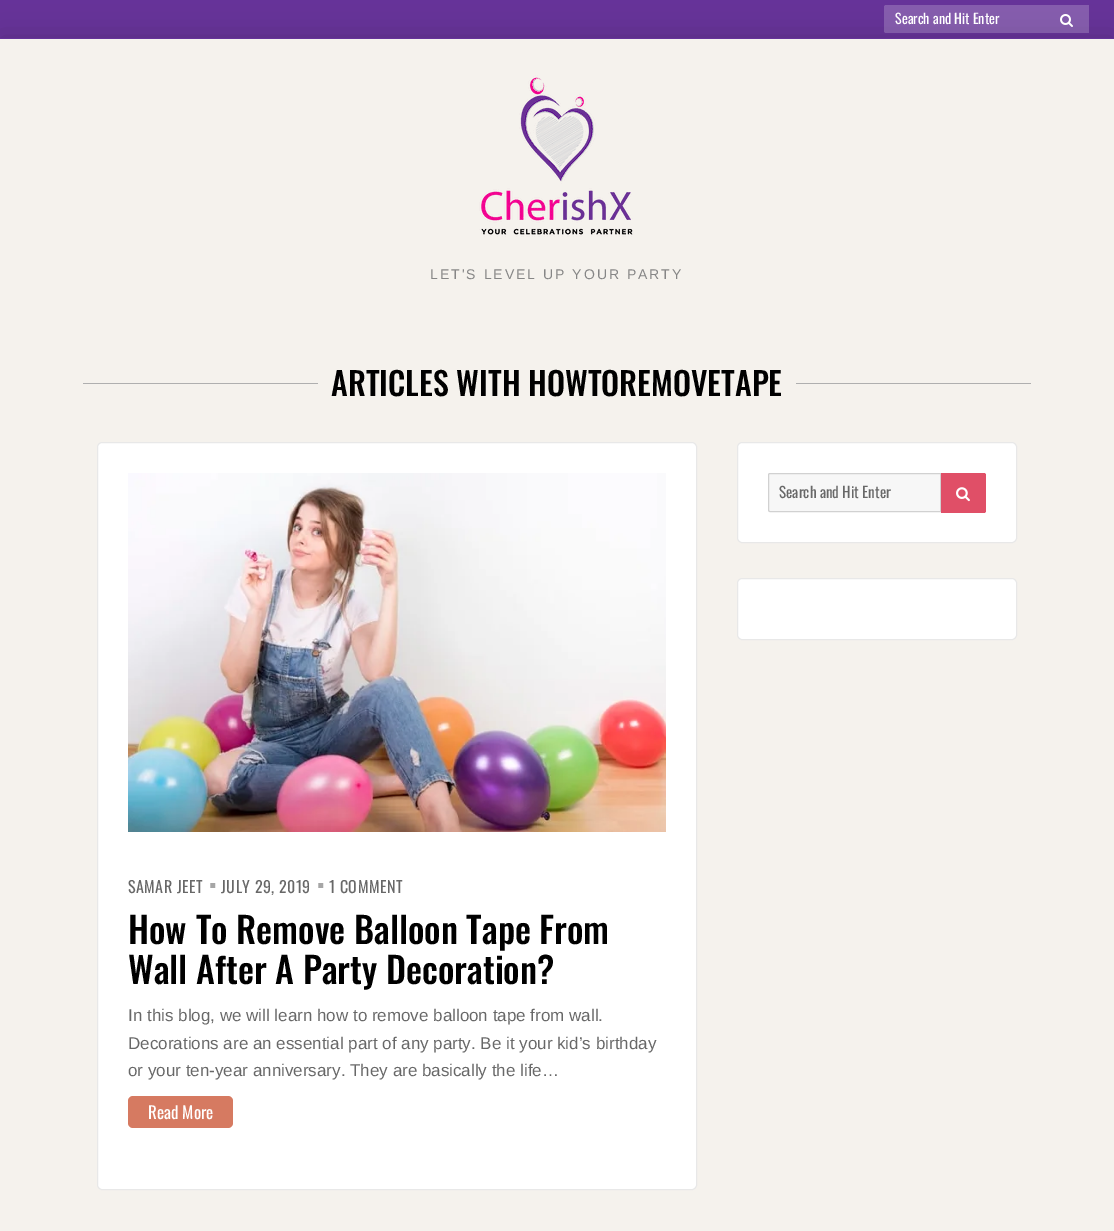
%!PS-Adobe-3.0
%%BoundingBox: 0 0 1114 1231
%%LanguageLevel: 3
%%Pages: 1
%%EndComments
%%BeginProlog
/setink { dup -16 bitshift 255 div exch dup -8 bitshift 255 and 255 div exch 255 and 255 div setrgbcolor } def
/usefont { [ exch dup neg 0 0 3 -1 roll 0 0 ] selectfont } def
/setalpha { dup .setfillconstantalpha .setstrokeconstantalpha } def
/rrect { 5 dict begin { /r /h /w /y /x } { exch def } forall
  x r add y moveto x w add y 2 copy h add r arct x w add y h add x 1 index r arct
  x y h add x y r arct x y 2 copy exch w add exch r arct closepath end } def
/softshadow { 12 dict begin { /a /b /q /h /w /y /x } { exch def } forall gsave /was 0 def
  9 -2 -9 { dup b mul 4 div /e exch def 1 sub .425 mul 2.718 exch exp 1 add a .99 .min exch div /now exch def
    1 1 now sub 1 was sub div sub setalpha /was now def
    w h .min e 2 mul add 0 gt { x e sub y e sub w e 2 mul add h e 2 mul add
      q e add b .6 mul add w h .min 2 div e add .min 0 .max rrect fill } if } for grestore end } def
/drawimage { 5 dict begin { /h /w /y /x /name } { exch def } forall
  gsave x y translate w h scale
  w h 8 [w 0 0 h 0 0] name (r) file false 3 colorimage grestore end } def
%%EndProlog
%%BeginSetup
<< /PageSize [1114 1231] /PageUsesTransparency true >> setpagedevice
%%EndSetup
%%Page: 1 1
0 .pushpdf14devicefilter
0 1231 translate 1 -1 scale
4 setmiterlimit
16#663399 setink
0 0 1114 1231 rectfill
16#000000 setink
0 38 1114 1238 0 15 0.15 softshadow
0.2 setalpha
16#FFFFFF setink
886 5 moveto 1089 5 lineto 1089 33 lineto 886 33 lineto 885 33 884 32 884 31 curveto 884 7 lineto 884 6 885 5 886 5 curveto closepath fill
/Oswald-Regular 14 usefont
1 setalpha
895 24 moveto (Search and Hit Enter) show
(img1.raw) 1060 14 13 13 drawimage
16#F5F2ED setink
0 39 1114 1192 rectfill
16#663399 setink
0 38 1114 1 rectfill
(img2.raw) 479 75 155 162 drawimage
/LiberationSans-Regular 14 usefont
16#868686 setink
430 279 moveto 2 0 (LET'S LEVEL UP YOUR PARTY) ashow
16#AFAFAF setink
83 383 235 1 rectfill
/Oswald-Medium 32 usefont
16#000000 setink
331 396 moveto (ARTICLES WITH HOWTOREMOVETAPE) show
16#AFAFAF setink
796 383 235 1 rectfill
16#FFFFFF setink
737.5 442.5 279 100 4.5 rrect gsave fill grestore
16#E8E8E8 setink
stroke
16#F7F7F7 setink
770 473.5 moveto 940.5 473.5 lineto 940.5 511.5 lineto 770 511.5 lineto 769 511.5 768.5 511 768.5 510 curveto 768.5 475 lineto 768.5 474 769 473.5 770 473.5 curveto closepath gsave fill grestore
16#D1D1D1 setink
stroke
/Oswald-Regular 15 usefont
16#686868 setink
779 498 moveto (Search and Hit Enter) show
16#E04F67 setink
941 473 moveto 984 473 lineto 985 473 986 474 986 475 curveto 986 511 lineto 986 512 985 513 984 513 curveto 941 513 lineto closepath fill
(img3.raw) 956 487 14 15 drawimage
16#FFFFFF setink
737.5 578.5 279 61 4.5 rrect gsave fill grestore
16#E8E8E8 setink
stroke
16#FFFFFF setink
97.5 442.5 599 747 4.5 rrect gsave fill grestore
16#E8E8E8 setink
stroke
(img4.raw) 128 473 538 359 drawimage
/Oswald-Regular 16 usefont
16#686868 setink
128 893 moveto 0.5 0 (SAMAR JEET) ashow
/Oswald-Bold 32 usefont
16#A6A6A6 setink
209 898 moveto 0.5 0 (·) ashow
/Oswald-Regular 16 usefont
16#686868 setink
221 893 moveto 0.5 0 (JULY 29, 2019) ashow
/Oswald-Bold 32 usefont
16#A6A6A6 setink
317 898 moveto 0.5 0 (·) ashow
/Oswald-Regular 16 usefont
16#686868 setink
329 893 moveto 0.5 0 (1 COMMENT) ashow
/Oswald-Medium 36 usefont
16#000000 setink
128 944 moveto (How To Remove Balloon Tape From) show
128 984 moveto (Wall After A Party Decoration?) show
/LiberationSans-Regular 17 usefont
16#686868 setink
[
    [(In this blog, we will learn how to remove balloon tape from wall.) 128 1021]
    [(Decorations are an essential part of any party. Be it your kid’s birthday) 128 1049]
    [(or your ten-year anniversary. They are basically the life…) 128 1076]
] { aload pop moveto show } forall
16#D67A61 setink
128 1096 105 32 5 rrect fill
/Oswald-Regular 17 usefont
16#FFFFFF setink
148 1119 moveto (Read More) show
.poppdf14devicefilter showpage
%%EOF
